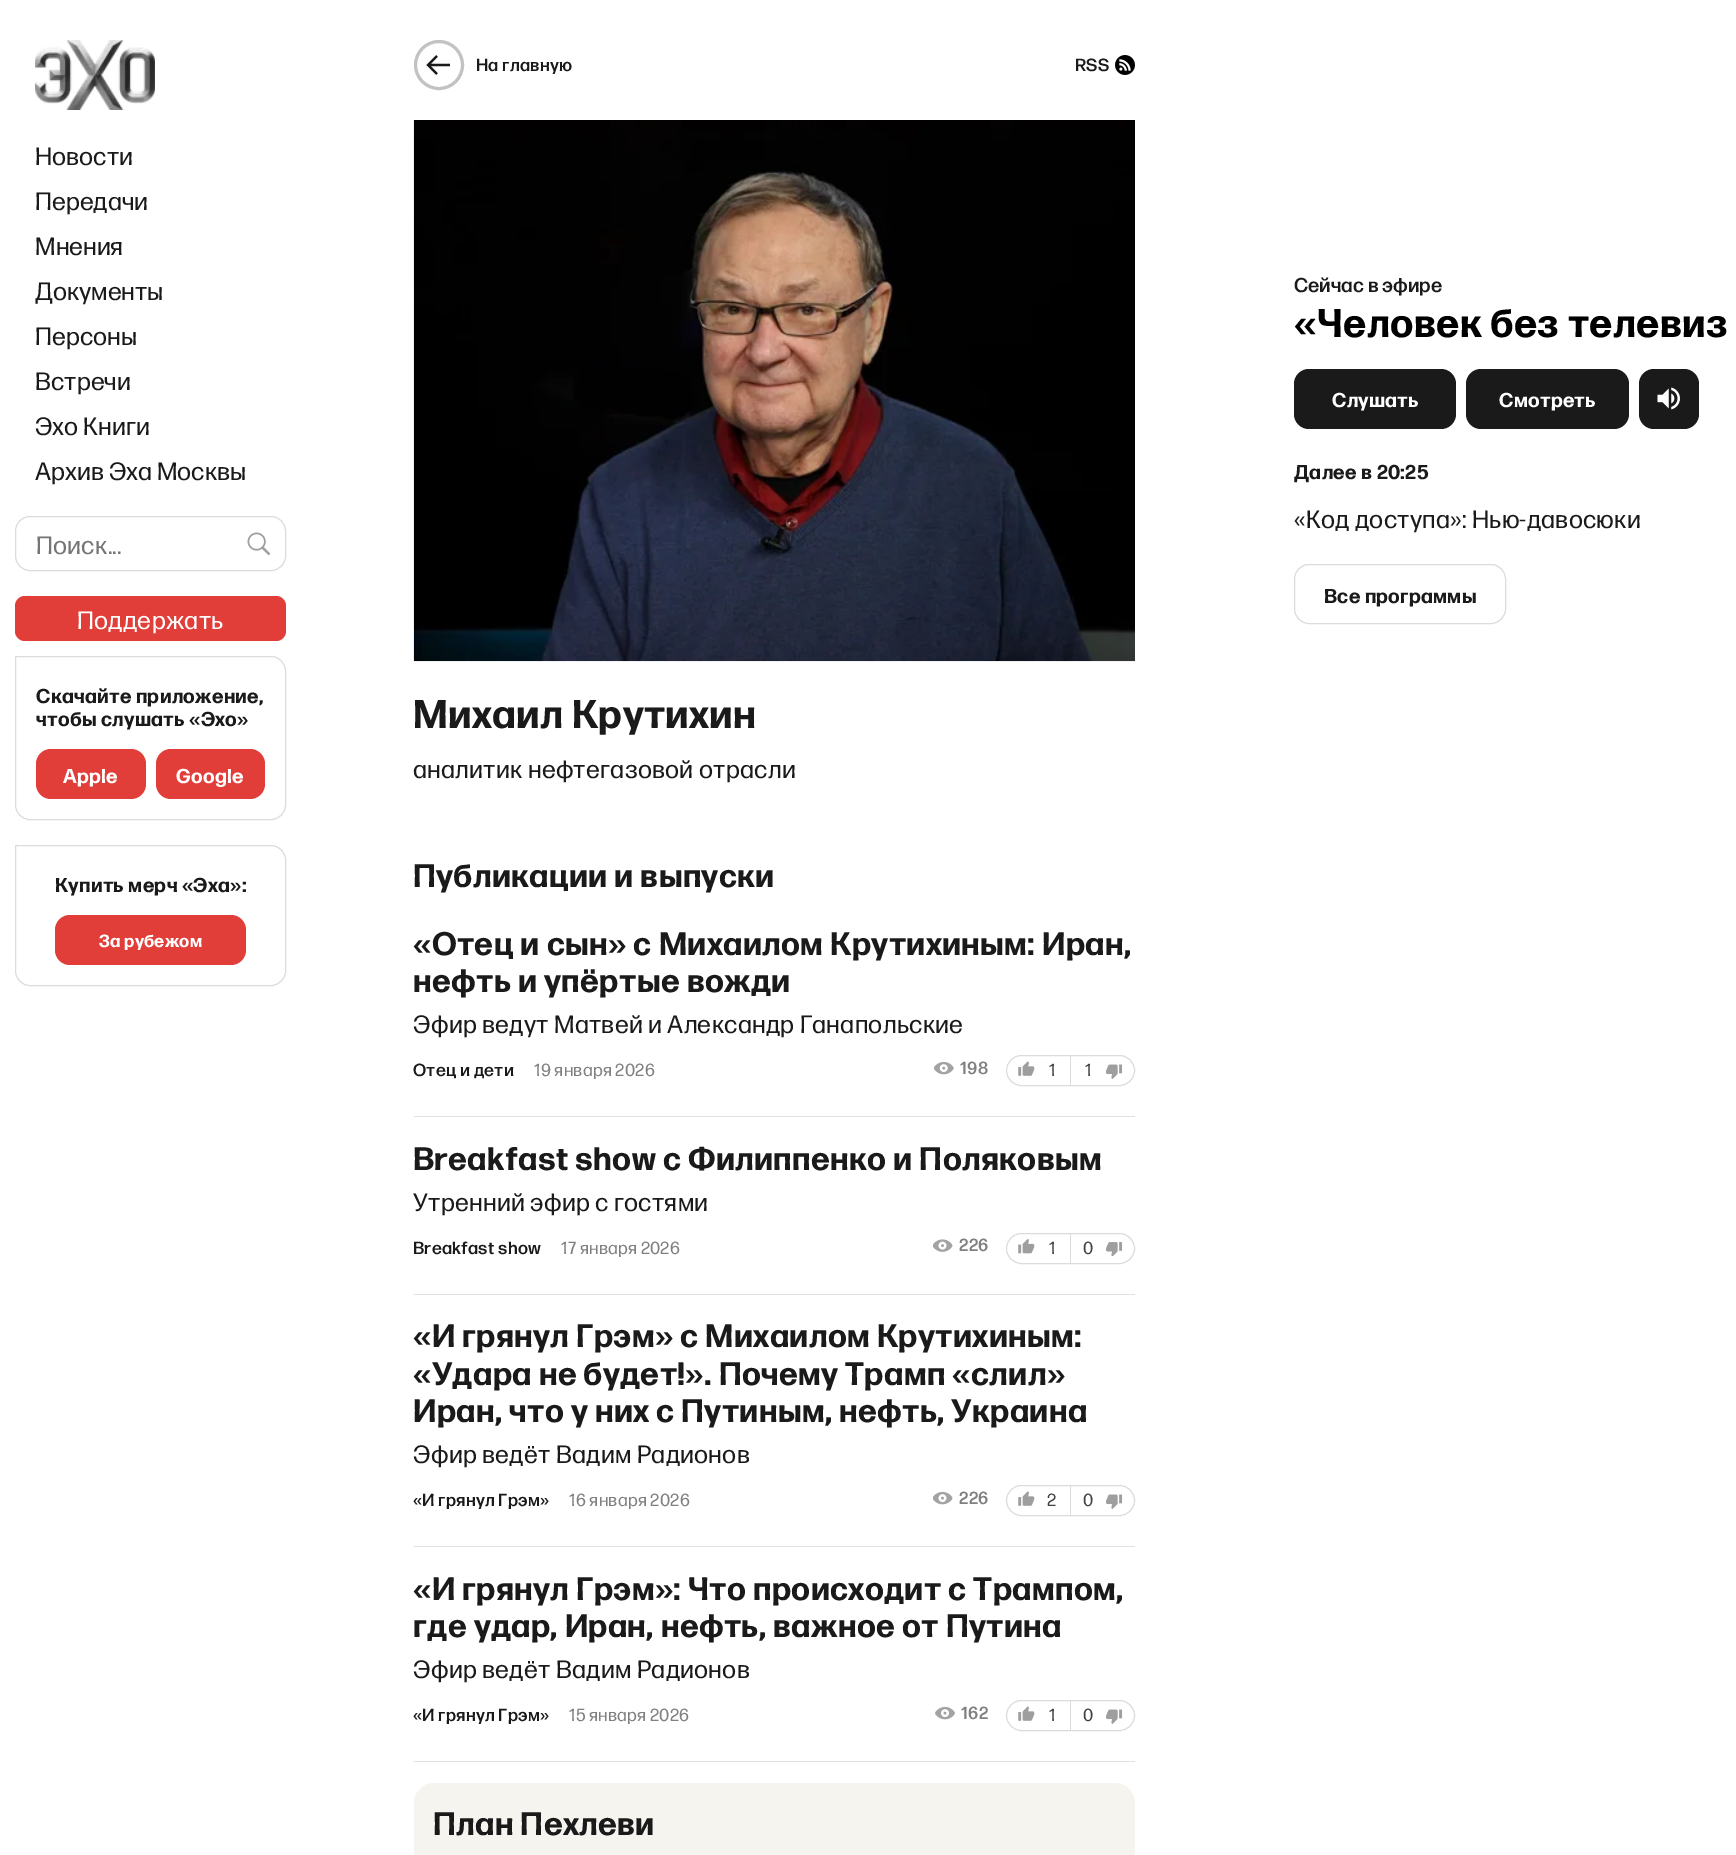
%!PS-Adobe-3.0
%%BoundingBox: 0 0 1736 1855
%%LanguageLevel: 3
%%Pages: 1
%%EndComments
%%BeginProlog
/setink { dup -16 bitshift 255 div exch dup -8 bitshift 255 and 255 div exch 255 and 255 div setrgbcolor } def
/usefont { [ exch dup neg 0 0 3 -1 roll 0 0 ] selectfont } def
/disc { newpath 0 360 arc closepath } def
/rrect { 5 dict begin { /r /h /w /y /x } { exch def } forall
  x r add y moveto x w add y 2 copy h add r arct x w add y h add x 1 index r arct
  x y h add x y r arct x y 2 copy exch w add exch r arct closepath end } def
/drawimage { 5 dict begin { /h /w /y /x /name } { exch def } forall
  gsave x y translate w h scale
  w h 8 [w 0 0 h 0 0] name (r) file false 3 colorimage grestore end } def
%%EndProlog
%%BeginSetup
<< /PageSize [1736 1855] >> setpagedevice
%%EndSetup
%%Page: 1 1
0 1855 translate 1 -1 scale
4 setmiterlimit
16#FFFFFF setink
0 0 1736 1855 rectfill
(img1.raw) 35 40 120 70 drawimage
/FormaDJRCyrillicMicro-Regular 25 usefont
16#1A1A1A setink
[
    [(Новости) 35 165]
    [(Передачи) 35 210]
    [(Мнения) 35 255]
    [(Документы) 35 300]
    [(Персоны) 35 345]
    [(Встречи) 35 390]
    [(Эхо Книги) 35 435]
    [(Архив Эха Москвы) 35 480]
] { aload pop moveto show } forall
16#DCDCDC setink
15.5 516.5 270 54 14.5 rrect stroke
16#757575 setink
36 554 moveto 0.25 0 (Поиск...) ashow
(img2.raw) 247 532 23 23 drawimage
16#E13E39 setink
15 596 271 45 10 rrect fill
16#FFFFFF setink
77 629 moveto 0.25 0 (Поддержать) ashow
16#DCDCDC setink
15.5 656.5 moveto 271 656.5 lineto 279 656.5 285.5 663 285.5 671 curveto 285.5 805 lineto 285.5 813 279 819.5 271 819.5 curveto 30 819.5 lineto 22 819.5 15.5 813 15.5 805 curveto closepath stroke
/FormaDJRCyrillicMicro-Bold 20 usefont
16#1A1A1A setink
36 703 moveto 0.25 0 (Скачайте приложение,) ashow
36 726 moveto 0.25 0 (чтобы слушать «Эхо») ashow
16#E13E39 setink
36 749 110 50 15 rrect fill
16#FFFFFF setink
63 783 moveto 0.25 0 (Apple) ashow
16#E13E39 setink
156 749 109 50 15 rrect fill
16#FFFFFF setink
176 783 moveto 0.25 0 (Google) ashow
16#DCDCDC setink
15.5 845.5 moveto 271 845.5 lineto 279 845.5 285.5 852 285.5 860 curveto 285.5 971 lineto 285.5 979 279 985.5 271 985.5 curveto 30 985.5 lineto 22 985.5 15.5 979 15.5 971 curveto closepath stroke
16#1A1A1A setink
55 892 moveto 0.25 0 (Купить мерч «Эха»:) ashow
16#E13E39 setink
55 915 191 50 15 rrect fill
/FormaDJRCyrillicMicro-Bold 17.5 usefont
16#FFFFFF setink
99 947 moveto 0.2 0 (За рубежом) ashow
16#C2C2C2 setink
3 setlinewidth
439 65 23.5 disc stroke
(img3.raw) 426 55 24 20 drawimage
/FormaDJRCyrillicMicro-Medium 17.5 usefont
16#1A1A1A setink
476 71 moveto 0.2 0 (На главную) ashow
1075 71 moveto 0.2 0 (RSS) ashow
(img4.raw) 1115 55 20 20 drawimage
(img5.raw) 413 120 722 542 drawimage
/FormaDJRCyrillicMicro-Bold 40 usefont
413 728 moveto 0.4 0 (Михаил Крутихин) ashow
/FormaDJRCyrillicMicro-Regular 25 usefont
413 778 moveto 0.25 0 (аналитик нефтегазовой отрасли) ashow
/FormaDJRCyrillicMicro-Bold 32.5 usefont
413 887 moveto 0.35 0 (Публикации и выпуски) ashow
413 955 moveto 0.35 0 («Отец и сын» с Михаилом Крутихиным: Иран,) ashow
413 992 moveto 0.35 0 (нефть и упёртые вожди) ashow
/FormaDJRCyrillicMicro-Regular 25 usefont
413 1033 moveto 0.25 0 (Эфир ведут Матвей и Александр Ганапольские) ashow
/FormaDJRCyrillicMicro-Medium 17.5 usefont
413 1076 moveto 0.2 0 (Отец и дети) ashow
/FormaDJRCyrillicMicro-Regular 17.5 usefont
16#808080 setink
534 1076 moveto 0.2 0 (19 января 2026) ashow
(img6.raw) 934 1061 20 14 drawimage
/FormaDJRCyrillicMicro-Medium 17.5 usefont
960 1074 moveto 0.2 0 (198) ashow
16#DCDCDC setink
1 setlinewidth
1006.5 1055.5 128 30 15 rrect stroke
1070 1056 1 29 rectfill
(img7.raw) 1018 1061 17 15 drawimage
/FormaDJRCyrillicMicro-Regular 17.5 usefont
16#434343 setink
1049 1076 moveto 0.2 0 (1) ashow
1085 1076 moveto 0.2 0 (1) ashow
(img8.raw) 1106 1064 17 15 drawimage
16#E0E0E0 setink
414 1116 721 1 rectfill
/FormaDJRCyrillicMicro-Bold 32.5 usefont
16#1A1A1A setink
413 1170 moveto 0.35 0 (Breakfast show с Филиппенко и Поляковым) ashow
/FormaDJRCyrillicMicro-Regular 25 usefont
413 1211 moveto 0.25 0 (Утренний эфир с гостями) ashow
/FormaDJRCyrillicMicro-Medium 17.5 usefont
413 1254 moveto 0.2 0 (Breakfast show) ashow
/FormaDJRCyrillicMicro-Regular 17.5 usefont
16#808080 setink
561 1254 moveto 0.2 0 (17 января 2026) ashow
(img9.raw) 933 1239 20 13 drawimage
/FormaDJRCyrillicMicro-Medium 17.5 usefont
959 1251 moveto 0.2 0 (226) ashow
16#DCDCDC setink
1006.5 1233.5 128 30 15 rrect stroke
1070 1234 1 29 rectfill
(img10.raw) 1018 1239 17 15 drawimage
/FormaDJRCyrillicMicro-Regular 17.5 usefont
16#434343 setink
1049 1254 moveto 0.2 0 (1) ashow
1083 1254 moveto 0.2 0 (0) ashow
(img11.raw) 1106 1242 17 14 drawimage
16#E0E0E0 setink
414 1294 721 1 rectfill
/FormaDJRCyrillicMicro-Bold 32.5 usefont
16#1A1A1A setink
413 1347 moveto 0.35 0 («И грянул Грэм» с Михаилом Крутихиным:) ashow
413 1385 moveto 0.35 0 («Удара не будет!». Почему Трамп «слил») ashow
413 1422 moveto 0.35 0 (Иран, что у них с Путиным, нефть, Украина) ashow
/FormaDJRCyrillicMicro-Regular 25 usefont
413 1463 moveto 0.25 0 (Эфир ведёт Вадим Радионов) ashow
/FormaDJRCyrillicMicro-Medium 17.5 usefont
413 1506 moveto 0.2 0 («И грянул Грэм») ashow
/FormaDJRCyrillicMicro-Regular 17.5 usefont
16#808080 setink
569 1506 moveto 0.2 0 (16 января 2026) ashow
(img12.raw) 933 1491 20 14 drawimage
/FormaDJRCyrillicMicro-Medium 17.5 usefont
959 1504 moveto 0.2 0 (226) ashow
16#DCDCDC setink
1006.5 1485.5 128 30 15 rrect stroke
1070 1486 1 29 rectfill
(img7.raw) 1018 1491 17 15 drawimage
/FormaDJRCyrillicMicro-Regular 17.5 usefont
16#434343 setink
1047 1506 moveto 0.2 0 (2) ashow
1083 1506 moveto 0.2 0 (0) ashow
(img8.raw) 1106 1494 17 15 drawimage
16#E0E0E0 setink
414 1546 721 1 rectfill
/FormaDJRCyrillicMicro-Bold 32.5 usefont
16#1A1A1A setink
413 1600 moveto 0.35 0 («И грянул Грэм»: Что происходит с Трампом,) ashow
413 1637 moveto 0.35 0 (где удар, Иран, нефть, важное от Путина) ashow
/FormaDJRCyrillicMicro-Regular 25 usefont
413 1678 moveto 0.25 0 (Эфир ведёт Вадим Радионов) ashow
/FormaDJRCyrillicMicro-Medium 17.5 usefont
413 1721 moveto 0.2 0 («И грянул Грэм») ashow
/FormaDJRCyrillicMicro-Regular 17.5 usefont
16#808080 setink
569 1721 moveto 0.2 0 (15 января 2026) ashow
(img13.raw) 935 1706 20 14 drawimage
/FormaDJRCyrillicMicro-Medium 17.5 usefont
961 1719 moveto 0.2 0 (162) ashow
16#DCDCDC setink
1006.5 1700.5 128 30 15 rrect stroke
1070 1701 1 29 rectfill
(img7.raw) 1018 1706 17 15 drawimage
/FormaDJRCyrillicMicro-Regular 17.5 usefont
16#434343 setink
1049 1721 moveto 0.2 0 (1) ashow
1083 1721 moveto 0.2 0 (0) ashow
(img8.raw) 1106 1709 17 15 drawimage
16#E0E0E0 setink
414 1761 721 1 rectfill
16#F6F4EF setink
434 1783 moveto 1115 1783 lineto 1126 1783 1135 1792 1135 1803 curveto 1135 1855 lineto 414 1855 lineto 414 1803 lineto 414 1792 423 1783 434 1783 curveto closepath fill
/FormaDJRCyrillicMicro-Bold 32.5 usefont
16#1A1A1A setink
433 1835 moveto 0.35 0 (План Пехлеви) ashow
/FormaDJRCyrillicMicro-Medium 20 usefont
1294 292 moveto (Сейчас в эфире) show
/FormaDJRCyrillicMicro-Bold 40 usefont
16#000000 setink
1294 337 moveto 0.4 0 («Человек без телевиз) ashow
16#1A1A1A setink
1294 369 162 60 15 rrect fill
/FormaDJRCyrillicMicro-Bold 20 usefont
16#FFFFFF setink
1332 407 moveto 0.25 0 (Слушать) ashow
16#1A1A1A setink
1466 369 163 60 15 rrect fill
16#FFFFFF setink
1499 407 moveto 0.25 0 (Смотреть) ashow
16#1A1A1A setink
1639 369 60 60 15 rrect fill
(img14.raw) 1657 387 23 23 drawimage
1294 479 moveto 0.25 0 (Далее в 20:25) ashow
/FormaDJRCyrillicMicro-Regular 25 usefont
1294 528 moveto 0.25 0 («Код доступа»: Нью-давосюки) ashow
16#DCDCDC setink
1294.5 564.5 211 59 14.5 rrect stroke
/FormaDJRCyrillicMicro-Bold 20 usefont
16#1A1A1A setink
1324 603 moveto 0.25 0 (Все программы) ashow
showpage
%%EOF
